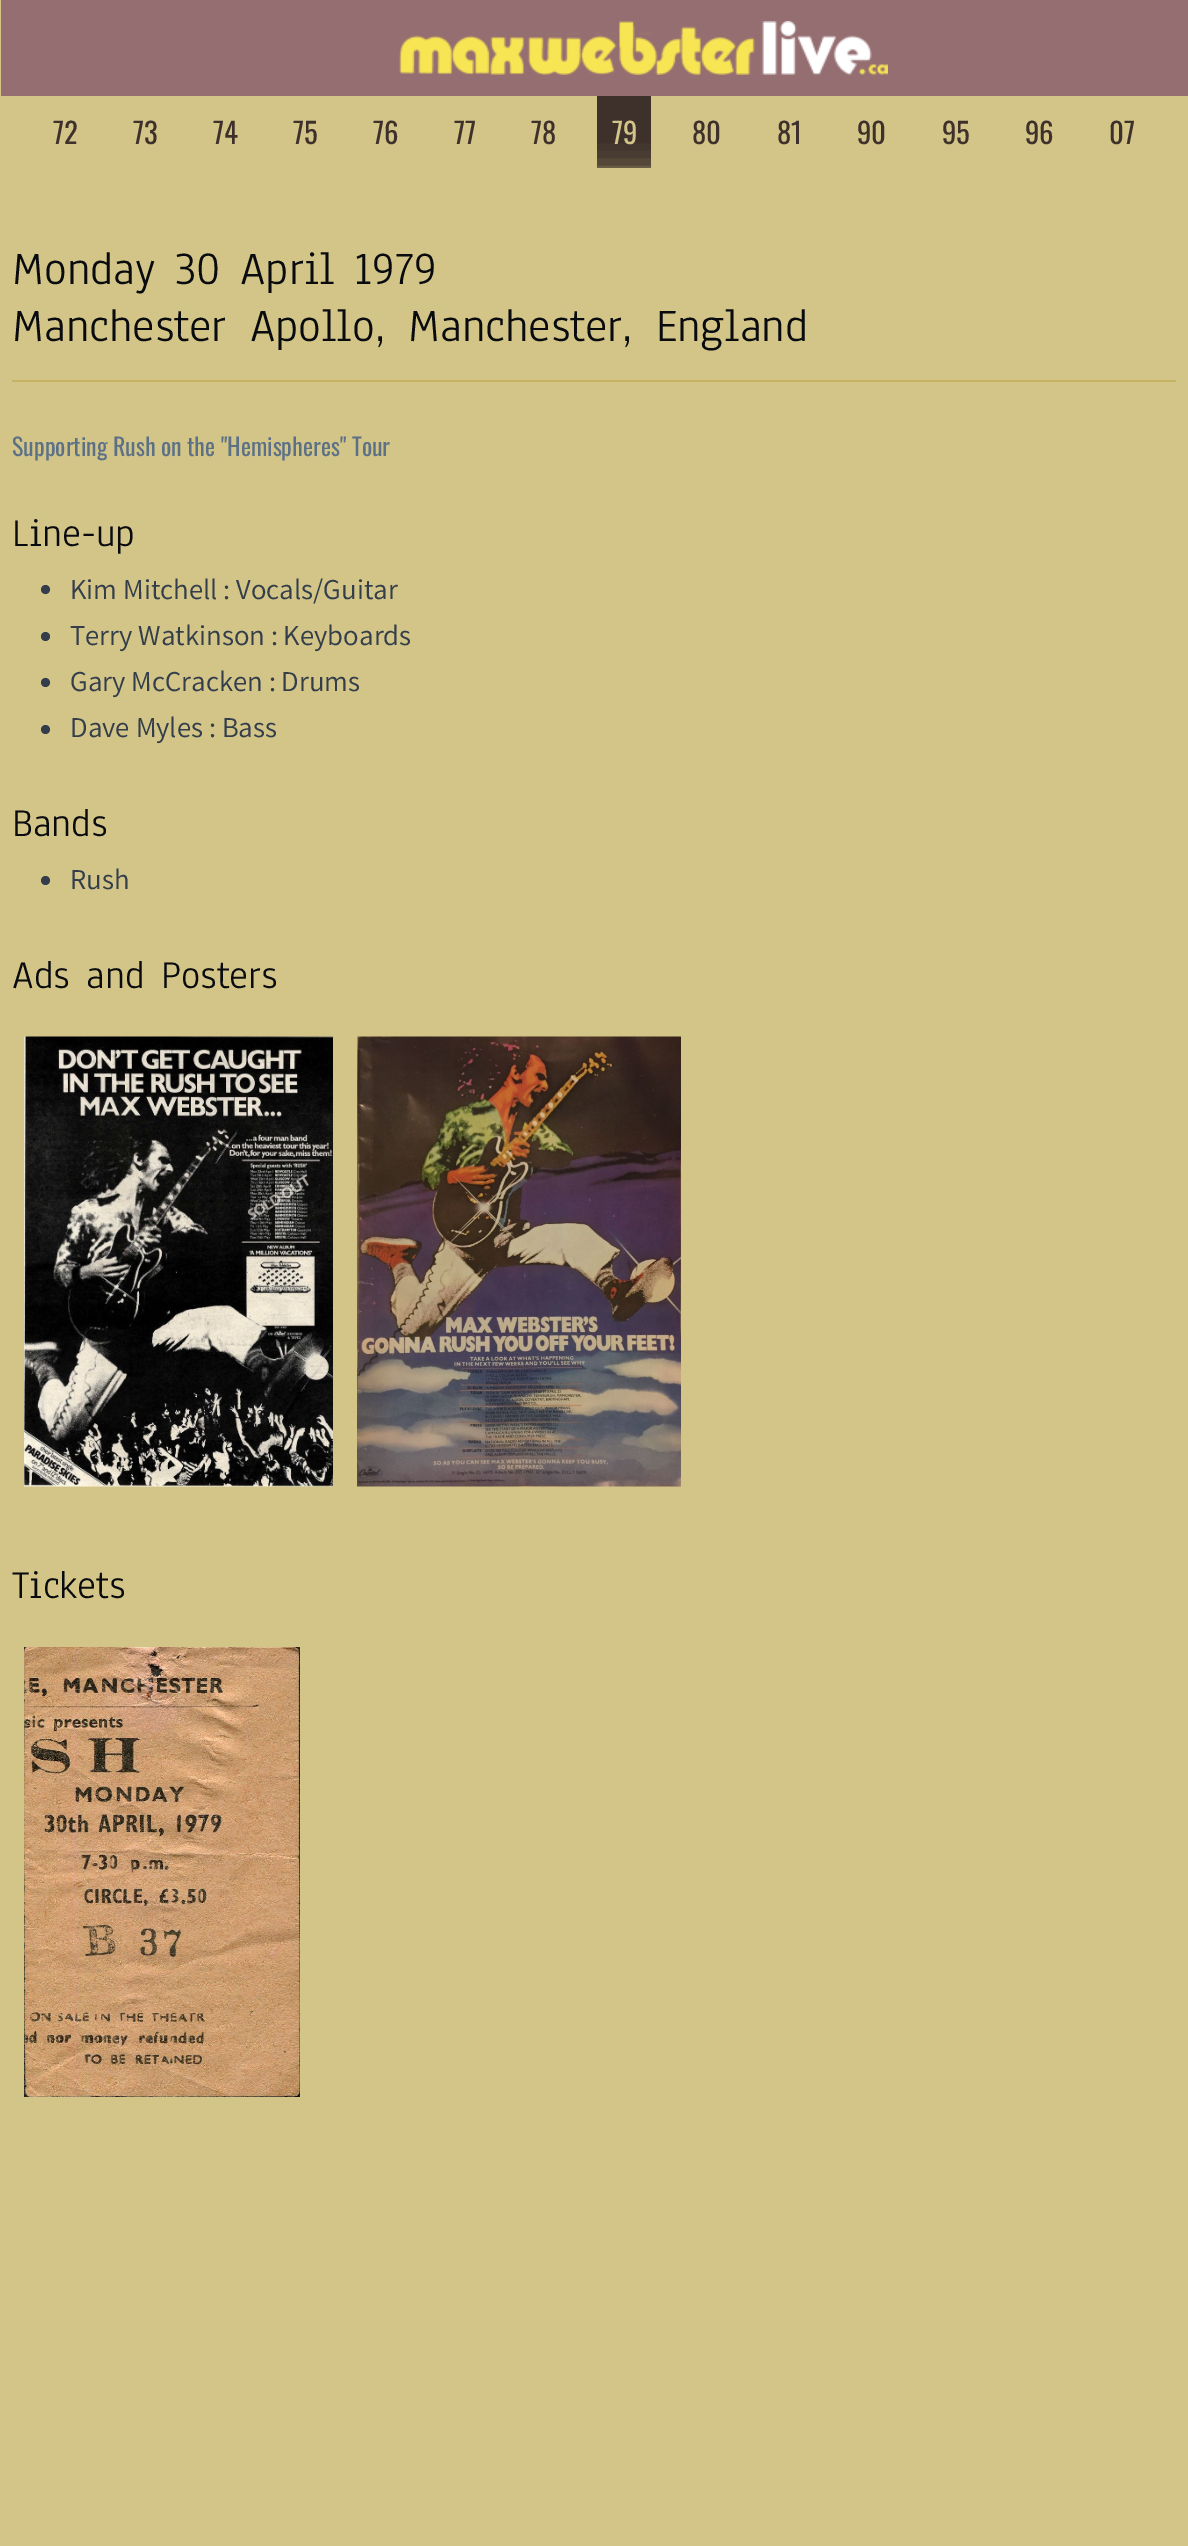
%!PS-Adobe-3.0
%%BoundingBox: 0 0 1188 2546
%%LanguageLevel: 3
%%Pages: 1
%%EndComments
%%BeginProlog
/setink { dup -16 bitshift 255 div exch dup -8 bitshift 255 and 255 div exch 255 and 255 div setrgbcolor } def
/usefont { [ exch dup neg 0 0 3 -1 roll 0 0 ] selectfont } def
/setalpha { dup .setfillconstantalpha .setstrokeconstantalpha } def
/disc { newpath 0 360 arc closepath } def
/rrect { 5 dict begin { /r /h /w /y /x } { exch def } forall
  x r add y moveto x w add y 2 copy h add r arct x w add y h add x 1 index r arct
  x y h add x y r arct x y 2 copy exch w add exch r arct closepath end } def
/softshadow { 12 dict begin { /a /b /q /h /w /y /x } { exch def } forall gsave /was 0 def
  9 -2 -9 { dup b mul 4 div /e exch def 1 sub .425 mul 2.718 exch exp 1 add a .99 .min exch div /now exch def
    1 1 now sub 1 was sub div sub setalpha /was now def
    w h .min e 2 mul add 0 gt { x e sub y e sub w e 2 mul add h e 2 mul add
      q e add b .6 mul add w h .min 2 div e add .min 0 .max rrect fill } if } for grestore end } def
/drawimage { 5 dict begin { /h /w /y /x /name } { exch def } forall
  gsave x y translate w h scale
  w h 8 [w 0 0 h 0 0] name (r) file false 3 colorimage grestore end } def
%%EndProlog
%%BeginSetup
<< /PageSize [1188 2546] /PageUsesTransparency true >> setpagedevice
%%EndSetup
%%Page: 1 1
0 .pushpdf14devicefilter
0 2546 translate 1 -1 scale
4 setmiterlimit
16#D3C588 setink
0 0 1188 2546 rectfill
16#956E71 setink
1 0 1187 96 rectfill
(img1.raw) 399 21 489 54 drawimage
/Oswald-Regular 28.75 usefont
16#3E312B setink
[
    [(72) 53 144]
    [(73) 133 144]
    [(74) 213 144]
    [(75) 293 144]
    [(76) 373 144]
    [(77) 454 144]
    [(78) 531 144]
] { aload pop moveto show } forall
597 96 54 72 rectfill
16#D3C588 setink
612 144 moveto (79) show
16#3E312B setink
[
    [(80) 692 144]
    [(81) 777 144]
    [(90) 857 144]
    [(95) 942 144]
    [(96) 1025 144]
    [(07) 1109 144]
] { aload pop moveto show } forall
gsave
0 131 moveto 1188 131 lineto 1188 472 lineto 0 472 lineto closepath 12 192 moveto 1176 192 lineto 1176 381 lineto 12 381 lineto closepath eoclip newpath
16#D3C588 setink
-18 177 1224 249 0 15 1 softshadow
grestore
16#C5B363 setink
12 380 1164 2 rectfill
/Anaheim-Regular 48 usefont
16#090B0E setink
12 284 moveto 3.5 0 32 (Monday 30 April 1979) widthshow
12 341 moveto 7 0 32 (Manchester Apollo, Manchester, England) widthshow
/Oswald-Regular 24 usefont
16#5D7186 setink
12 456 moveto (Supporting Rush on the "Hemispheres" Tour) show
/Anaheim-Regular 40.75 usefont
16#090B0E setink
12 546 moveto (Line-up) show
16#333E4A setink
45.5 589.5 4.5 disc fill
/Varta-Regular 28.75 usefont
70 599 moveto (Kim Mitchell : Vocals/Guitar) show
45.5 636.5 4.5 disc fill
70 645 moveto (Terry Watkinson : Keyboards) show
45.5 682.5 4.5 disc fill
70 691 moveto (Gary McCracken : Drums) show
45.5 729.5 4.5 disc fill
70 737 moveto (Dave Myles : Bass) show
/Anaheim-Regular 40.75 usefont
16#090B0E setink
12 836 moveto (Bands) show
16#333E4A setink
45.5 880.5 4.5 disc fill
/Varta-Regular 28.75 usefont
70 889 moveto (Rush) show
/Anaheim-Regular 40.75 usefont
16#090B0E setink
12 988 moveto 3 0 32 (Ads and Posters) widthshow
(img2.raw) 24 1036 309 451 drawimage
(img3.raw) 357 1036 324 451 drawimage
12 1598 moveto (Tickets) show
(img4.raw) 24 1647 276 450 drawimage
.poppdf14devicefilter showpage
%%EOF
